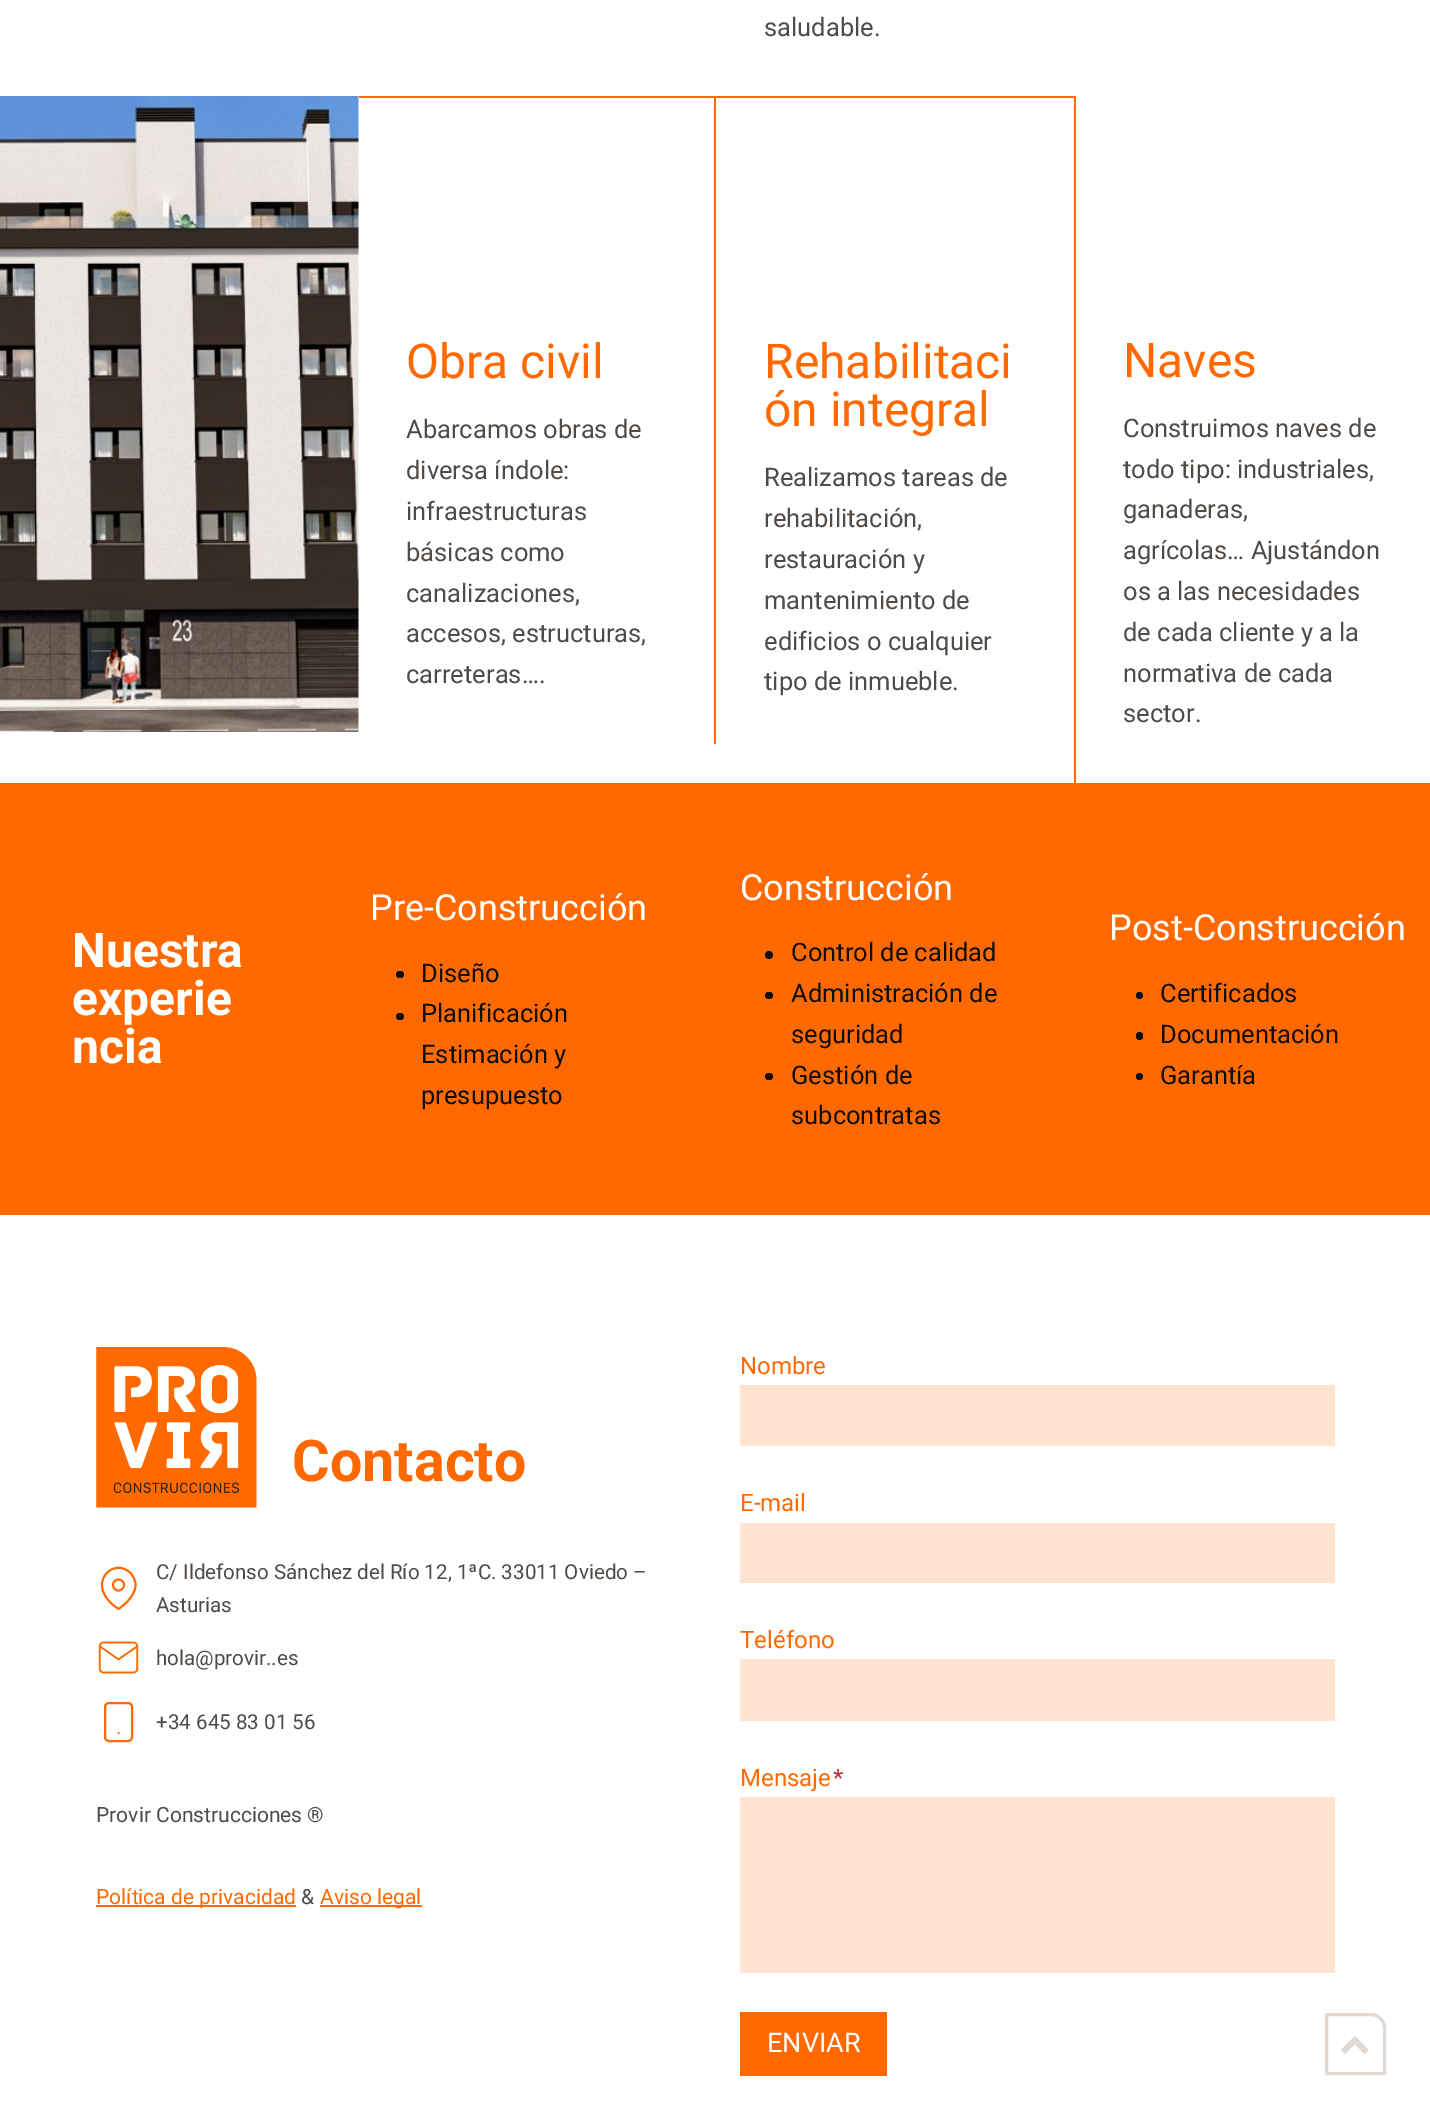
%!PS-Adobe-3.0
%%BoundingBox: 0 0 1430 2119
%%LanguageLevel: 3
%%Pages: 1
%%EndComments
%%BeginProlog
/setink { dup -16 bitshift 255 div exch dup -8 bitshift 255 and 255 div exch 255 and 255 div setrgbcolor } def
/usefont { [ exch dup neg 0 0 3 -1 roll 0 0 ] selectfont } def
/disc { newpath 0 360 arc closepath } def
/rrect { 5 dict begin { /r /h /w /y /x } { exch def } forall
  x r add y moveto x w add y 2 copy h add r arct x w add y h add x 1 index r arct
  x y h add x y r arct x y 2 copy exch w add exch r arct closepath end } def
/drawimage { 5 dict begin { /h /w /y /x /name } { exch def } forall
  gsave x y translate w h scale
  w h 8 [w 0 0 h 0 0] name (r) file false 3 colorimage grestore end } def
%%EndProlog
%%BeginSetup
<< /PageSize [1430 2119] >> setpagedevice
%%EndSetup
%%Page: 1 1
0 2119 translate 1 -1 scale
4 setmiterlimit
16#FFFFFF setink
0 0 1430 2119 rectfill
/Roboto-Regular 25.5 usefont
16#504B47 setink
764 36 moveto (saludable.) show
(img1.raw) 0 96 359 636 drawimage
16#FF6900 setink
359 96 715 2 rectfill
714 96 2 648 rectfill
/Roboto-Regular 48 usefont
406 378 moveto (Obra civil) show
/Roboto-Regular 25.5 usefont
16#504B47 setink
[
    [(Abarcamos obras de) 406 438]
    [(diversa índole:) 406 479]
    [(infraestructuras) 406 520]
    [(básicas como) 406 561]
    [(canalizaciones,) 406 602]
    [(accesos, estructuras,) 406 642]
    [(carreteras….) 406 683]
] { aload pop moveto show } forall
/Roboto-Regular 48 usefont
16#FF6900 setink
764 378 moveto (Rehabilitaci) show
764 426 moveto (ón integral) show
/Roboto-Regular 25.5 usefont
16#504B47 setink
[
    [(Realizamos tareas de) 764 486]
    [(rehabilitación,) 764 527]
    [(restauración y) 764 568]
    [(mantenimiento de) 764 609]
    [(edificios o cualquier) 764 650]
    [(tipo de inmueble.) 764 690]
] { aload pop moveto show } forall
16#FF6900 setink
1074 96 2 687 rectfill
/Roboto-Regular 48 usefont
1123 377 moveto (Naves) show
/Roboto-Regular 25.5 usefont
16#504B47 setink
[
    [(Construimos naves de) 1123 437]
    [(todo tipo: industriales,) 1123 478]
    [(ganaderas,) 1123 518]
    [(agrícolas… Ajustándon) 1123 559]
    [(os a las necesidades) 1123 600]
    [(de cada cliente y a la) 1123 641]
    [(normativa de cada) 1123 682]
    [(sector.) 1123 722]
] { aload pop moveto show } forall
16#FF6900 setink
0 783 1430 432 rectfill
/Roboto-Bold 48 usefont
16#FFFFFF setink
[
    [(Nuestra) 72 967]
    [(experie) 72 1015]
    [(ncia) 72 1063]
] { aload pop moveto show } forall
/Roboto-Regular 36 usefont
370 920 moveto (Pre-Construcción) show
16#0F0F0F setink
396 971 8 7 3.5 rrect fill
/Roboto-Regular 25.5 usefont
421 982 moveto (Diseño) show
396 1013 8 7 3.5 rrect fill
[
    [(Planificación) 421 1022]
    [(Estimación y) 421 1063]
    [(presupuesto) 421 1104]
] { aload pop moveto show } forall
/Roboto-Regular 36 usefont
16#FFFFFF setink
740 900 moveto (Construcción) show
16#0F0F0F setink
769 955 4 disc fill
/Roboto-Regular 25.5 usefont
791 961 moveto (Control de calidad) show
765 992 8 7 3.5 rrect fill
791 1002 moveto (Administración de) show
791 1043 moveto (seguridad) show
765 1073 8 7 3.5 rrect fill
791 1084 moveto (Gestión de) show
791 1124 moveto (subcontratas) show
/Roboto-Regular 36 usefont
16#FFFFFF setink
1109 940 moveto (Post-Construcción) show
16#0F0F0F setink
1139.5 995.5 3.5 disc fill
/Roboto-Regular 25.5 usefont
1160 1002 moveto (Certificados) show
1136 1032 7 8 3.5 rrect fill
1160 1043 moveto (Documentación) show
1139.5 1076.5 3.5 disc fill
1160 1084 moveto (Garantía) show
(img2.raw) 96 1347 161 161 drawimage
/Roboto-Bold 57.5 usefont
16#FF6900 setink
292 1481 moveto (Contacto) show
1.9 setlinewidth
1 setlinecap
1 setlinejoin
135.5 1585 moveto 135.5 1598 118.5 1609 118.5 1609 curveto 83 1585.5 113 1555.5 130.5 1573 curveto 133.5 1576 135.5 1580.5 135.5 1585 curveto closepath stroke
0 setlinecap
0 setlinejoin
118.5 1585 5.5 disc stroke
/Roboto-Regular 20.6 usefont
16#504B47 setink
156 1579 moveto (C/ Ildefonso Sánchez del Río 12, 1ªC. 33011 Oviedo –) show
156 1612 moveto (Asturias) show
(img3.raw) 98 1641 41 33 drawimage
156 1665 moveto (hola@provir..es) show
16#FF6900 setink
2 setlinewidth
105 1703 27 38 4 rrect stroke
1.9 setlinewidth
1 setlinecap
1 setlinejoin
118.5 1733 moveto 118.5 1733 lineto stroke
16#504B47 setink
156 1729 moveto (+34 645 83 01 56) show
/Roboto-Regular 21 usefont
96 1822 moveto (Provir Construcciones ®) show
16#FF6900 setink
96 1905 200 2 rectfill
96 1904 moveto (Política de privacidad) show
16#504B47 setink
301 1904 moveto (&) show
16#FF6900 setink
320 1905 102 2 rectfill
320 1904 moveto (Aviso legal) show
/Roboto-Regular 24 usefont
740 1374 moveto (Nombre) show
16#FFE4D1 setink
740 1385 moveto 1333.5 1385 lineto 1334.5 1385 1335 1385.5 1335 1386.5 curveto 1335 1446 lineto 740 1446 lineto closepath fill
16#FF6900 setink
740 1511 moveto (E-mail) show
16#FFE4D1 setink
740 1523 moveto 1333.5 1523 lineto 1334.5 1523 1335 1523.5 1335 1524.5 curveto 1335 1583 lineto 740 1583 lineto closepath fill
16#FF6900 setink
740 1648 moveto (Teléfono) show
16#FFE4D1 setink
740 1659 moveto 1333.5 1659 lineto 1334.5 1659 1335 1659.5 1335 1660.5 curveto 1335 1721 lineto 740 1721 lineto closepath fill
16#FF6900 setink
740 1786 moveto (Mensaje) show
16#B32D2E setink
833 1786 moveto (*) show
16#FFE4D1 setink
740 1797 moveto 1333.5 1797 lineto 1334.5 1797 1335 1797.5 1335 1798.5 curveto 1335 1973 lineto 740 1973 lineto closepath fill
16#FF6900 setink
740 2012 moveto 885.5 2012 lineto 886.5 2012 887 2012.5 887 2013.5 curveto 887 2076 lineto 740 2076 lineto closepath fill
/Roboto-Regular 27 usefont
16#FFFFFF setink
767 2052 moveto (ENVIAR) show
16#E0D9D4 setink
3 setlinewidth
0 setlinecap
0 setlinejoin
1326.5 2014.5 moveto 1371 2014.5 lineto 1378.5 2014.5 1384.5 2020.5 1384.5 2028 curveto 1384.5 2073.5 lineto 1326.5 2073.5 lineto closepath stroke
(img4.raw) 1341 2036 28 18 drawimage
showpage
%%EOF
